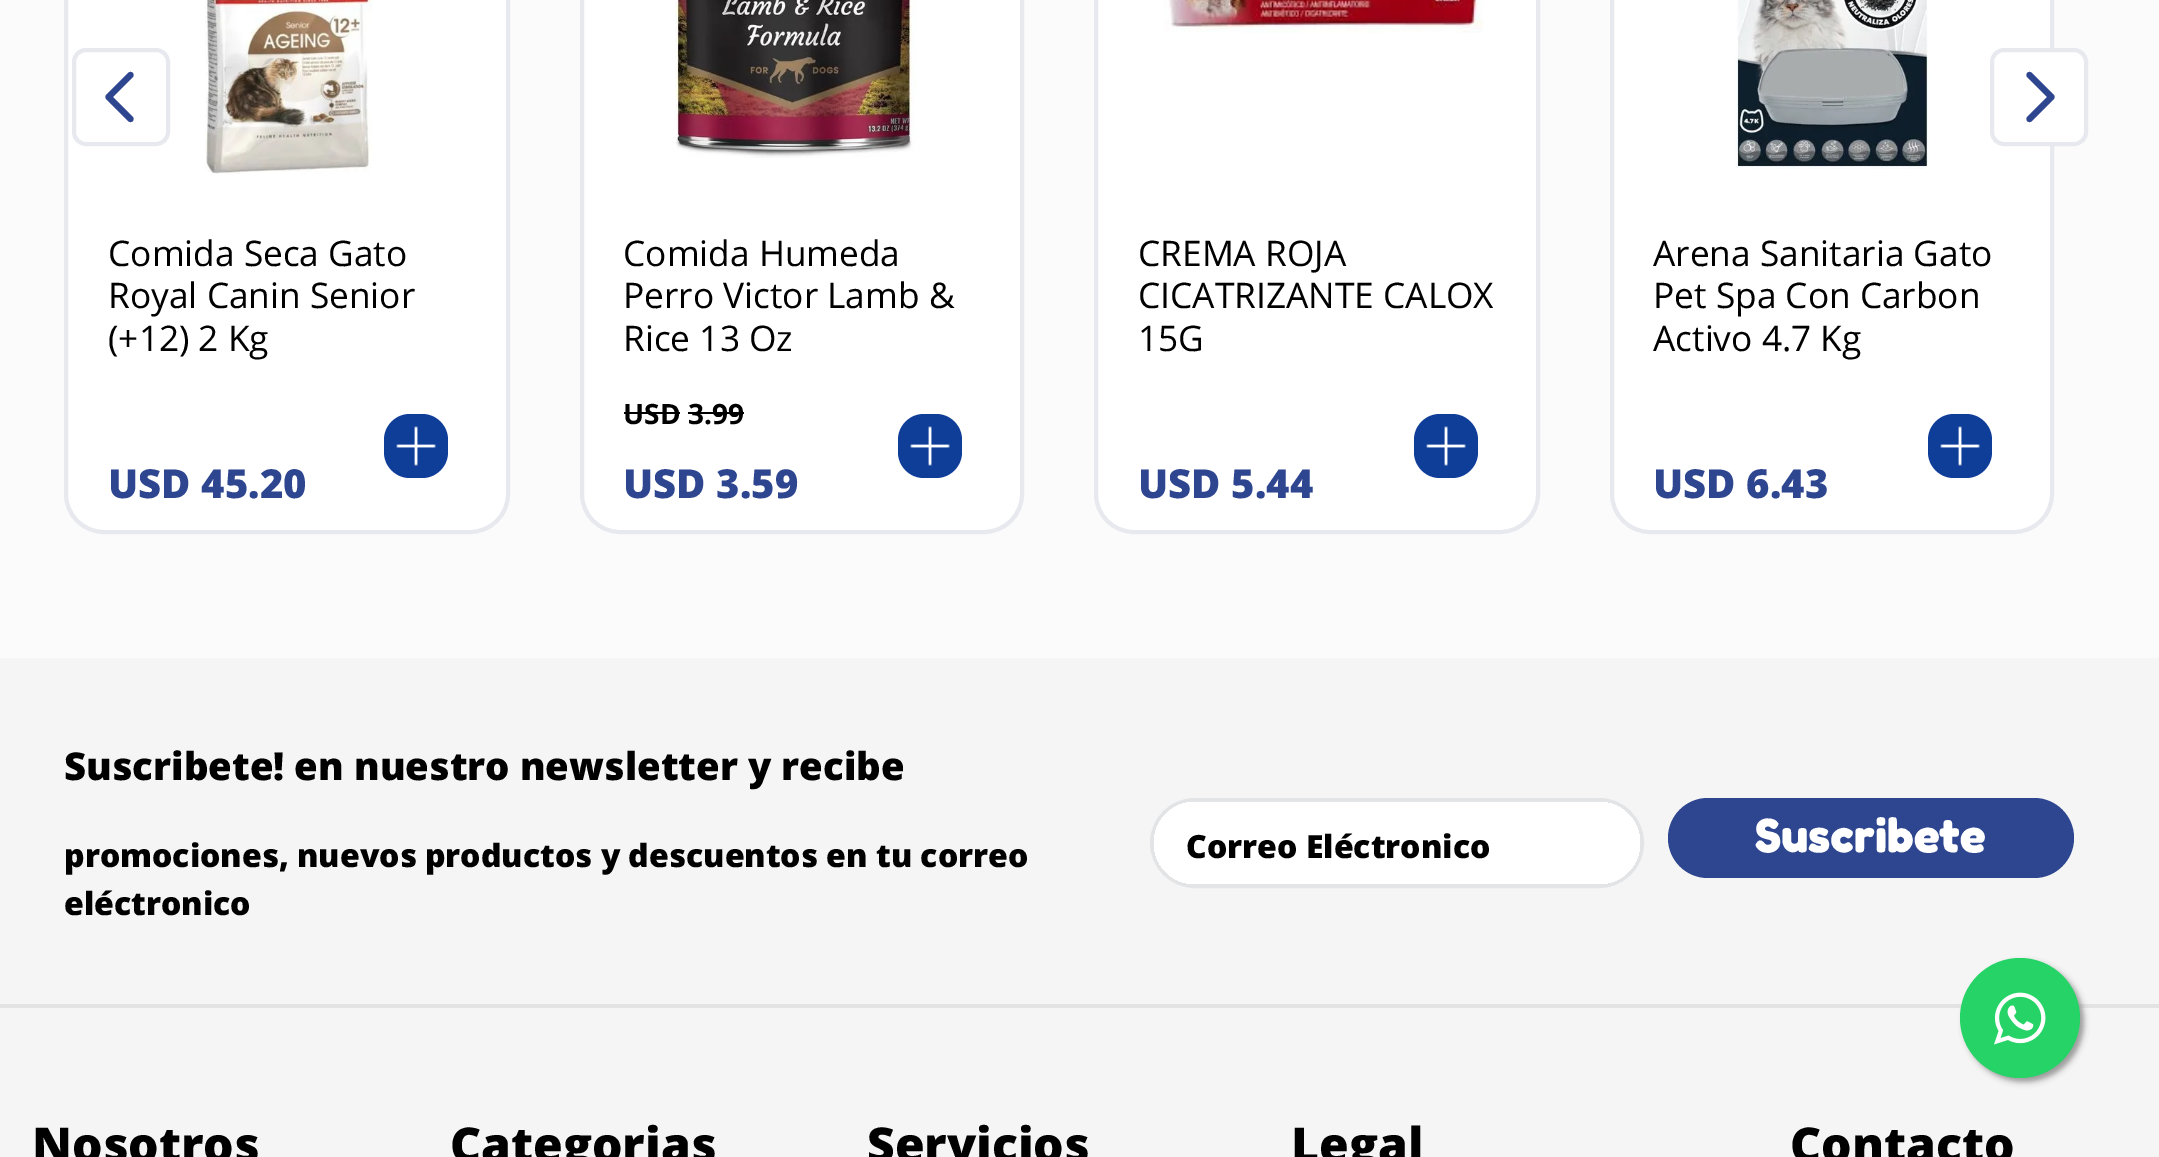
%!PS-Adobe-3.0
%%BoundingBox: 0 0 2159 1157
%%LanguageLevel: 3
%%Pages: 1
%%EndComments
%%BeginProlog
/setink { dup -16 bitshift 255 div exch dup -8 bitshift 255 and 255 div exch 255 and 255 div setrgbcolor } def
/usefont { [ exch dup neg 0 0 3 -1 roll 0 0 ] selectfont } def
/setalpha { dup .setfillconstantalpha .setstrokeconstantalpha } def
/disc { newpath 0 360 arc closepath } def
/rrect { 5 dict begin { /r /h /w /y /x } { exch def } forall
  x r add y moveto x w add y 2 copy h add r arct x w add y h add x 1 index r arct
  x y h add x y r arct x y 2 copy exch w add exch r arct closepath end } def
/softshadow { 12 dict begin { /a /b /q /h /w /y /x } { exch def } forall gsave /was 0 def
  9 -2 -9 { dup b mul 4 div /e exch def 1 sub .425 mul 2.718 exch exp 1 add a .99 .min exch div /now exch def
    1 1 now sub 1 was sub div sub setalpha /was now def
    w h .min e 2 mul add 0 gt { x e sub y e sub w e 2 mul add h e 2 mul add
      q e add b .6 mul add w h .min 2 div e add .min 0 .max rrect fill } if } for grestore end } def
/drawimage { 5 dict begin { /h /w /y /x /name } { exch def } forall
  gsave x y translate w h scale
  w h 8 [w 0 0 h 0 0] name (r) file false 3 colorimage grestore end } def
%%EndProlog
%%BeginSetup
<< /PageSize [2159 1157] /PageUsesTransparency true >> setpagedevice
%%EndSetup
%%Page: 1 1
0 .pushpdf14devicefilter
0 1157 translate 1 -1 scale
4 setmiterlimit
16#FBFBFB setink
0 0 2159 1157 rectfill
16#FFFFFF setink
66 -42 442 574 38 rrect gsave fill grestore
16#E7E9EE setink
4 setlinewidth
stroke
74 50 94 94 12 rrect stroke
16#2E4690 setink
6.2 setlinewidth
1 setlinecap
1 setlinejoin
130.5 75 moveto 108.5 97 lineto 130.5 119 lineto stroke
16#FFFFFF setink
1612 -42 440 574 38 rrect gsave fill grestore
16#E7E9EE setink
4 setlinewidth
0 setlinecap
0 setlinejoin
stroke
16#FFFFFF setink
1992 50 94 94 12 rrect gsave fill grestore
16#E7E9EE setink
stroke
16#2E4690 setink
6.2 setlinewidth
1 setlinecap
1 setlinejoin
2029.5 119 moveto 2051.5 97 lineto 2029.5 75 lineto stroke
(img1.raw) 205 0 168 175 drawimage
/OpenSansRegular-Regular 35.25 usefont
16#000000 setink
[
    [(Comida Seca Gato) 108 266]
    [(Royal Canin Senior) 108 308]
    [(\(+12\) 2 Kg) 108 351]
] { aload pop moveto show } forall
16#0F3E99 setink
384 414 64 64 26 rrect fill
(img2.raw) 396 426 40 40 drawimage
/OpenSans-ExtraBold 40 usefont
16#2E4690 setink
108 498 moveto (USD 45.20) show
16#FFFFFF setink
582 -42 440 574 38 rrect gsave fill grestore
16#E7E9EE setink
4 setlinewidth
0 setlinecap
0 setlinejoin
stroke
(img3.raw) 675 0 241 158 drawimage
/OpenSansRegular-Regular 35.25 usefont
16#000000 setink
[
    [(Comida Humeda) 623 266]
    [(Perro Victor Lamb &) 623 308]
    [(Rice 13 Oz) 623 351]
] { aload pop moveto show } forall
/OpenSans-Bold 28 usefont
623 424 moveto (USD 3.99) show
624 412 56 2 rectfill
688 412 56 2 rectfill
/OpenSans-ExtraBold 40 usefont
16#2E4690 setink
623 498 moveto (USD 3.59) show
16#0F3E99 setink
898 414 64 64 26 rrect fill
(img2.raw) 910 426 40 40 drawimage
16#FFFFFF setink
1096 -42 442 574 38 rrect gsave fill grestore
16#E7E9EE setink
stroke
(img4.raw) 1164 0 320 33 drawimage
/OpenSansRegular-Regular 35.25 usefont
16#000000 setink
[
    [(CREMA ROJA) 1138 266]
    [(CICATRIZANTE CALOX) 1138 308]
    [(15G) 1138 351]
] { aload pop moveto show } forall
16#0F3E99 setink
1414 414 64 64 26 rrect fill
(img2.raw) 1426 426 40 40 drawimage
/OpenSans-ExtraBold 40 usefont
16#2E4690 setink
1138 498 moveto (USD 5.44) show
(img5.raw) 1735 0 194 169 drawimage
/OpenSansRegular-Regular 35.25 usefont
16#000000 setink
[
    [(Arena Sanitaria Gato) 1653 266]
    [(Pet Spa Con Carbon) 1653 308]
    [(Activo 4.7 Kg) 1653 351]
] { aload pop moveto show } forall
16#0F3E99 setink
1928 414 64 64 26 rrect fill
(img2.raw) 1940 426 40 40 drawimage
/OpenSans-ExtraBold 40 usefont
16#2E4690 setink
1653 498 moveto (USD 6.43) show
16#F5F5F5 setink
0 658 2159 346 rectfill
/OpenSans-ExtraBold 38.4 usefont
16#000000 setink
64 780 moveto (Suscribete! en nuestro newsletter y recibe) show
/OpenSans-ExtraBold 32 usefont
64 867 moveto (promociones, nuevos productos y descuentos en tu correo) show
64 915 moveto (eléctronico) show
16#E3E4E6 setink
1152 800 490 86 43 rrect stroke
gsave
1154 802 486 82 41 rrect clip newpath
16#FFFFFF setink
1154 802 486 90 20 rrect fill
grestore
16#000000 setink
1186 858 moveto (Correo Eléctronico) show
16#2E4690 setink
1668 798 406 80 40 rrect fill
/Fredoka-Bold 48 usefont
16#FFFFFF setink
1755 852 moveto (Suscribete) show
16#F5F5F5 setink
0 1008 2159 149 rectfill
16#E3E3E3 setink
0 1004 2159 4 rectfill
/OpenSans-ExtraBold 48 usefont
16#000000 setink
[
    [(Nosotros) 32 1162]
    [(Categorias) 450 1162]
    [(Servicios) 867 1162]
    [(Legal) 1291 1162]
    [(Contacto) 1790 1162]
] { aload pop moveto show } forall
16#999999 setink
1964 962 120 120 60 3 1 softshadow
16#25D366 setink
2020 1018 60 disc fill
(img6.raw) 1994 992 52 53 drawimage
.poppdf14devicefilter showpage
%%EOF
